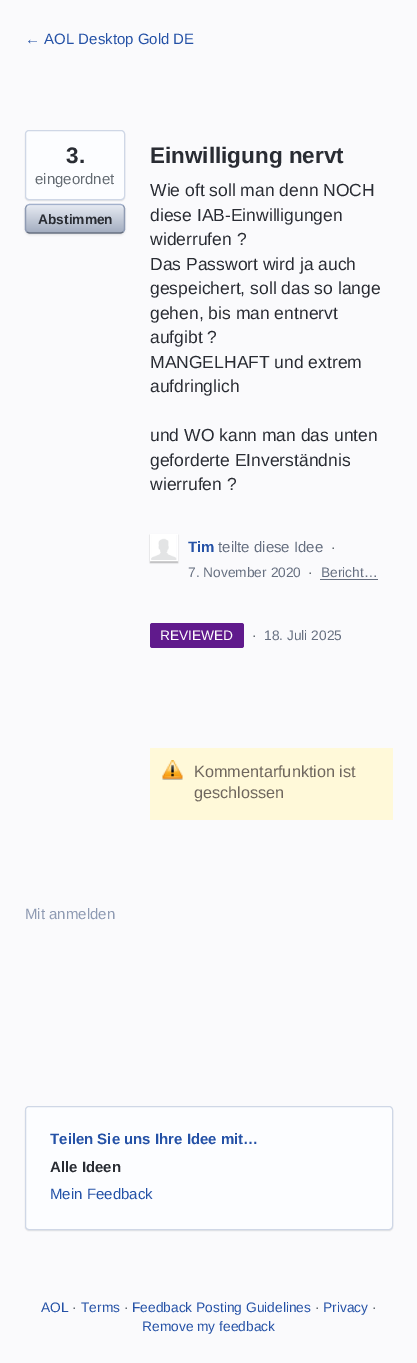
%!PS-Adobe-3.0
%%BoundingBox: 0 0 417 1363
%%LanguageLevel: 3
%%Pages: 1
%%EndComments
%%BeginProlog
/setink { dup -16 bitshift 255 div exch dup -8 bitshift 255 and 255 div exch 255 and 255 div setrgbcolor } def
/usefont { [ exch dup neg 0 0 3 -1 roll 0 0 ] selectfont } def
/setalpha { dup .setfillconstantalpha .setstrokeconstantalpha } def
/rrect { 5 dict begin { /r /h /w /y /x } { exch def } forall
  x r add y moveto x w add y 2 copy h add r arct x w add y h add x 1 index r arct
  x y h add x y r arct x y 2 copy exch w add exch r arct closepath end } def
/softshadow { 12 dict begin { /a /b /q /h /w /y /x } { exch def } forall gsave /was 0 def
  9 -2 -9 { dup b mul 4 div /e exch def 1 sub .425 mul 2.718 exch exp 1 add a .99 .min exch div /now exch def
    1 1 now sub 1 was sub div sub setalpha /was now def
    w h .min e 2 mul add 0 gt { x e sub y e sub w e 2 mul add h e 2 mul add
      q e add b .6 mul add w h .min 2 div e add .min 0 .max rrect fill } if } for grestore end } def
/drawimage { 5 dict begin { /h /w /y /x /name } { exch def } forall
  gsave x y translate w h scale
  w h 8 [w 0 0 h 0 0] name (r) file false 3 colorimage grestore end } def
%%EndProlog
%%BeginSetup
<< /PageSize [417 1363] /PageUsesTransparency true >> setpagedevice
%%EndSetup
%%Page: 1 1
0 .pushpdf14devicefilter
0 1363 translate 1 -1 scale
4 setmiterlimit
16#FAFAFC setink
0 0 417 1363 rectfill
/LiberationSans-Regular 15 usefont
16#2451A6 setink
25 44 moveto (← AOL Desktop Gold DE) show
16#000000 setink
25 131 100 70 4 0.5 0.1 softshadow
16#FCFDFF setink
25.5 130.5 99 69 3.5 rrect gsave fill grestore
16#CFD7E6 setink
stroke
/LiberationSans-Bold 22.5 usefont
16#292C33 setink
66 163 moveto (3.) show
/LiberationSans-Regular 15 usefont
16#646B72 setink
35 184 moveto (eingeordnet) show
16#000000 setink
25 205 100 30 5 1 0.1 softshadow
gsave 26 205 98 28 4 rrect clip newpath
<< /ShadingType 2 /ColorSpace /DeviceRGB /Coords [26 205 26 233] /Extend [true true] /Function << /FunctionType 2 /Domain [0 1] /C0 [0.902 0.918 0.949] /C1 [0.635 0.675 0.749] /N 1 >> >> shfill grestore
0.5 setalpha
16#FFFFFF setink
30 206 moveto 120 206 lineto 122 206 124 208 124 210 curveto 124 201 109 205 105 205 curveto 45 205 lineto 41 205 26 201 26 210 curveto 26 208 28 206 30 206 curveto closepath fill
1 setalpha
16#A3B1CC setink
1.2 setlinewidth
27 205.5 moveto 27.5 205 29 204.5 30 204.5 curveto 120 204.5 lineto 121 204.5 122.5 205 123 205.5 curveto stroke
16#8F9BB3 setink
123 205.5 moveto 124 206.5 124.5 207.5 124.5 209 curveto 124.5 229 lineto 124.5 230 124 231 123 232 curveto stroke
16#666F80 setink
123 232 moveto 122.5 232.5 121 233 120 233 curveto 30 233 lineto 29 233 27.5 232.5 27 232 curveto stroke
16#8F9BB3 setink
27 232 moveto 26 231 25.5 230 25.5 229 curveto 25.5 209 lineto 25.5 207.5 26 206.5 27 205.5 curveto stroke
/LiberationSans-Bold 13.75 usefont
16#292C33 setink
38 224 moveto (Abstimmen) show
/LiberationSans-Bold 22.5 usefont
150 163 moveto (Einwilligung nervt) show
/LiberationSans-Regular 17.5 usefont
[
    [(Wie oft soll man denn NOCH) 150 196]
    [(diese IAB-Einwilligungen) 150 221]
    [(widerrufen ?) 150 245]
    [(Das Passwort wird ja auch) 150 270]
    [(gespeichert, soll das so lange) 150 294]
    [(gehen, bis man entnervt) 150 319]
    [(aufgibt ?) 150 343]
    [(MANGELHAFT und extrem) 150 368]
    [(aufdringlich) 150 392]
    [(und WO kann man das unten) 150 441]
    [(geforderte EInverständnis) 150 466]
    [(wierrufen ?) 150 490]
] { aload pop moveto show } forall
16#000000 setink
150 535 28 28 0 0.5 0.25 softshadow
16#FFFFFF setink
1 setlinewidth
150.5 534.5 27 26 rectstroke
(img1.raw) 151 535 26 25 drawimage
/LiberationSans-Bold 15 usefont
16#2451A6 setink
188 552 moveto (Tim) show
/LiberationSans-Regular 15 usefont
16#666F80 setink
218 552 moveto (teilte diese Idee) show
/LiberationSans-Regular 13.75 usefont
16#646B72 setink
331 552 moveto (·) show
16#666F80 setink
188 577 moveto (7. November 2020) show
16#646B72 setink
308 577 moveto (·) show
16#666F80 setink
321 577 moveto (Bericht…) show
320 579 58 1 rectfill
16#601A8C setink
150 623 94 25 2.5 rrect fill
16#FFFFFF setink
160 640 moveto (REVIEWED) show
16#646B72 setink
252 640 moveto (·) show
16#666F80 setink
264 640 moveto (18. Juli 2025) show
16#FFF9D9 setink
150 748 243 72 rectfill
(img2.raw) 162 760 21 20 drawimage
/LiberationSans-Regular 16.25 usefont
16#6F675E setink
194 777 moveto (Kommentarfunktion ist) show
194 798 moveto (geschlossen) show
/LiberationSans-Regular 15 usefont
16#8F9BB3 setink
25 919 moveto (Mit anmelden) show
16#000000 setink
25 1108 368 123 4 0.5 0.1 softshadow
16#FCFDFF setink
25.5 1106.5 367 123 3.5 rrect gsave fill grestore
16#CFD7E6 setink
stroke
/LiberationSans-Bold 15 usefont
16#2451A6 setink
50 1144 moveto (Teilen Sie uns Ihre Idee mit…) show
16#292C33 setink
50 1172 moveto (Alle Ideen) show
/LiberationSans-Regular 15 usefont
16#2451A6 setink
50 1199 moveto (Mein Feedback) show
/LiberationSans-Regular 13.75 usefont
41 1312 moveto (AOL) show
16#646B72 setink
72 1312 moveto (·) show
16#2451A6 setink
81 1312 moveto (Terms) show
16#646B72 setink
124 1312 moveto (·) show
16#2451A6 setink
132 1312 moveto (Feedback Posting Guidelines) show
16#646B72 setink
315 1312 moveto (·) show
16#2451A6 setink
323 1312 moveto (Privacy) show
16#646B72 setink
372 1312 moveto (·) show
16#2451A6 setink
142 1331 moveto (Remove my feedback) show
.poppdf14devicefilter showpage
%%EOF
